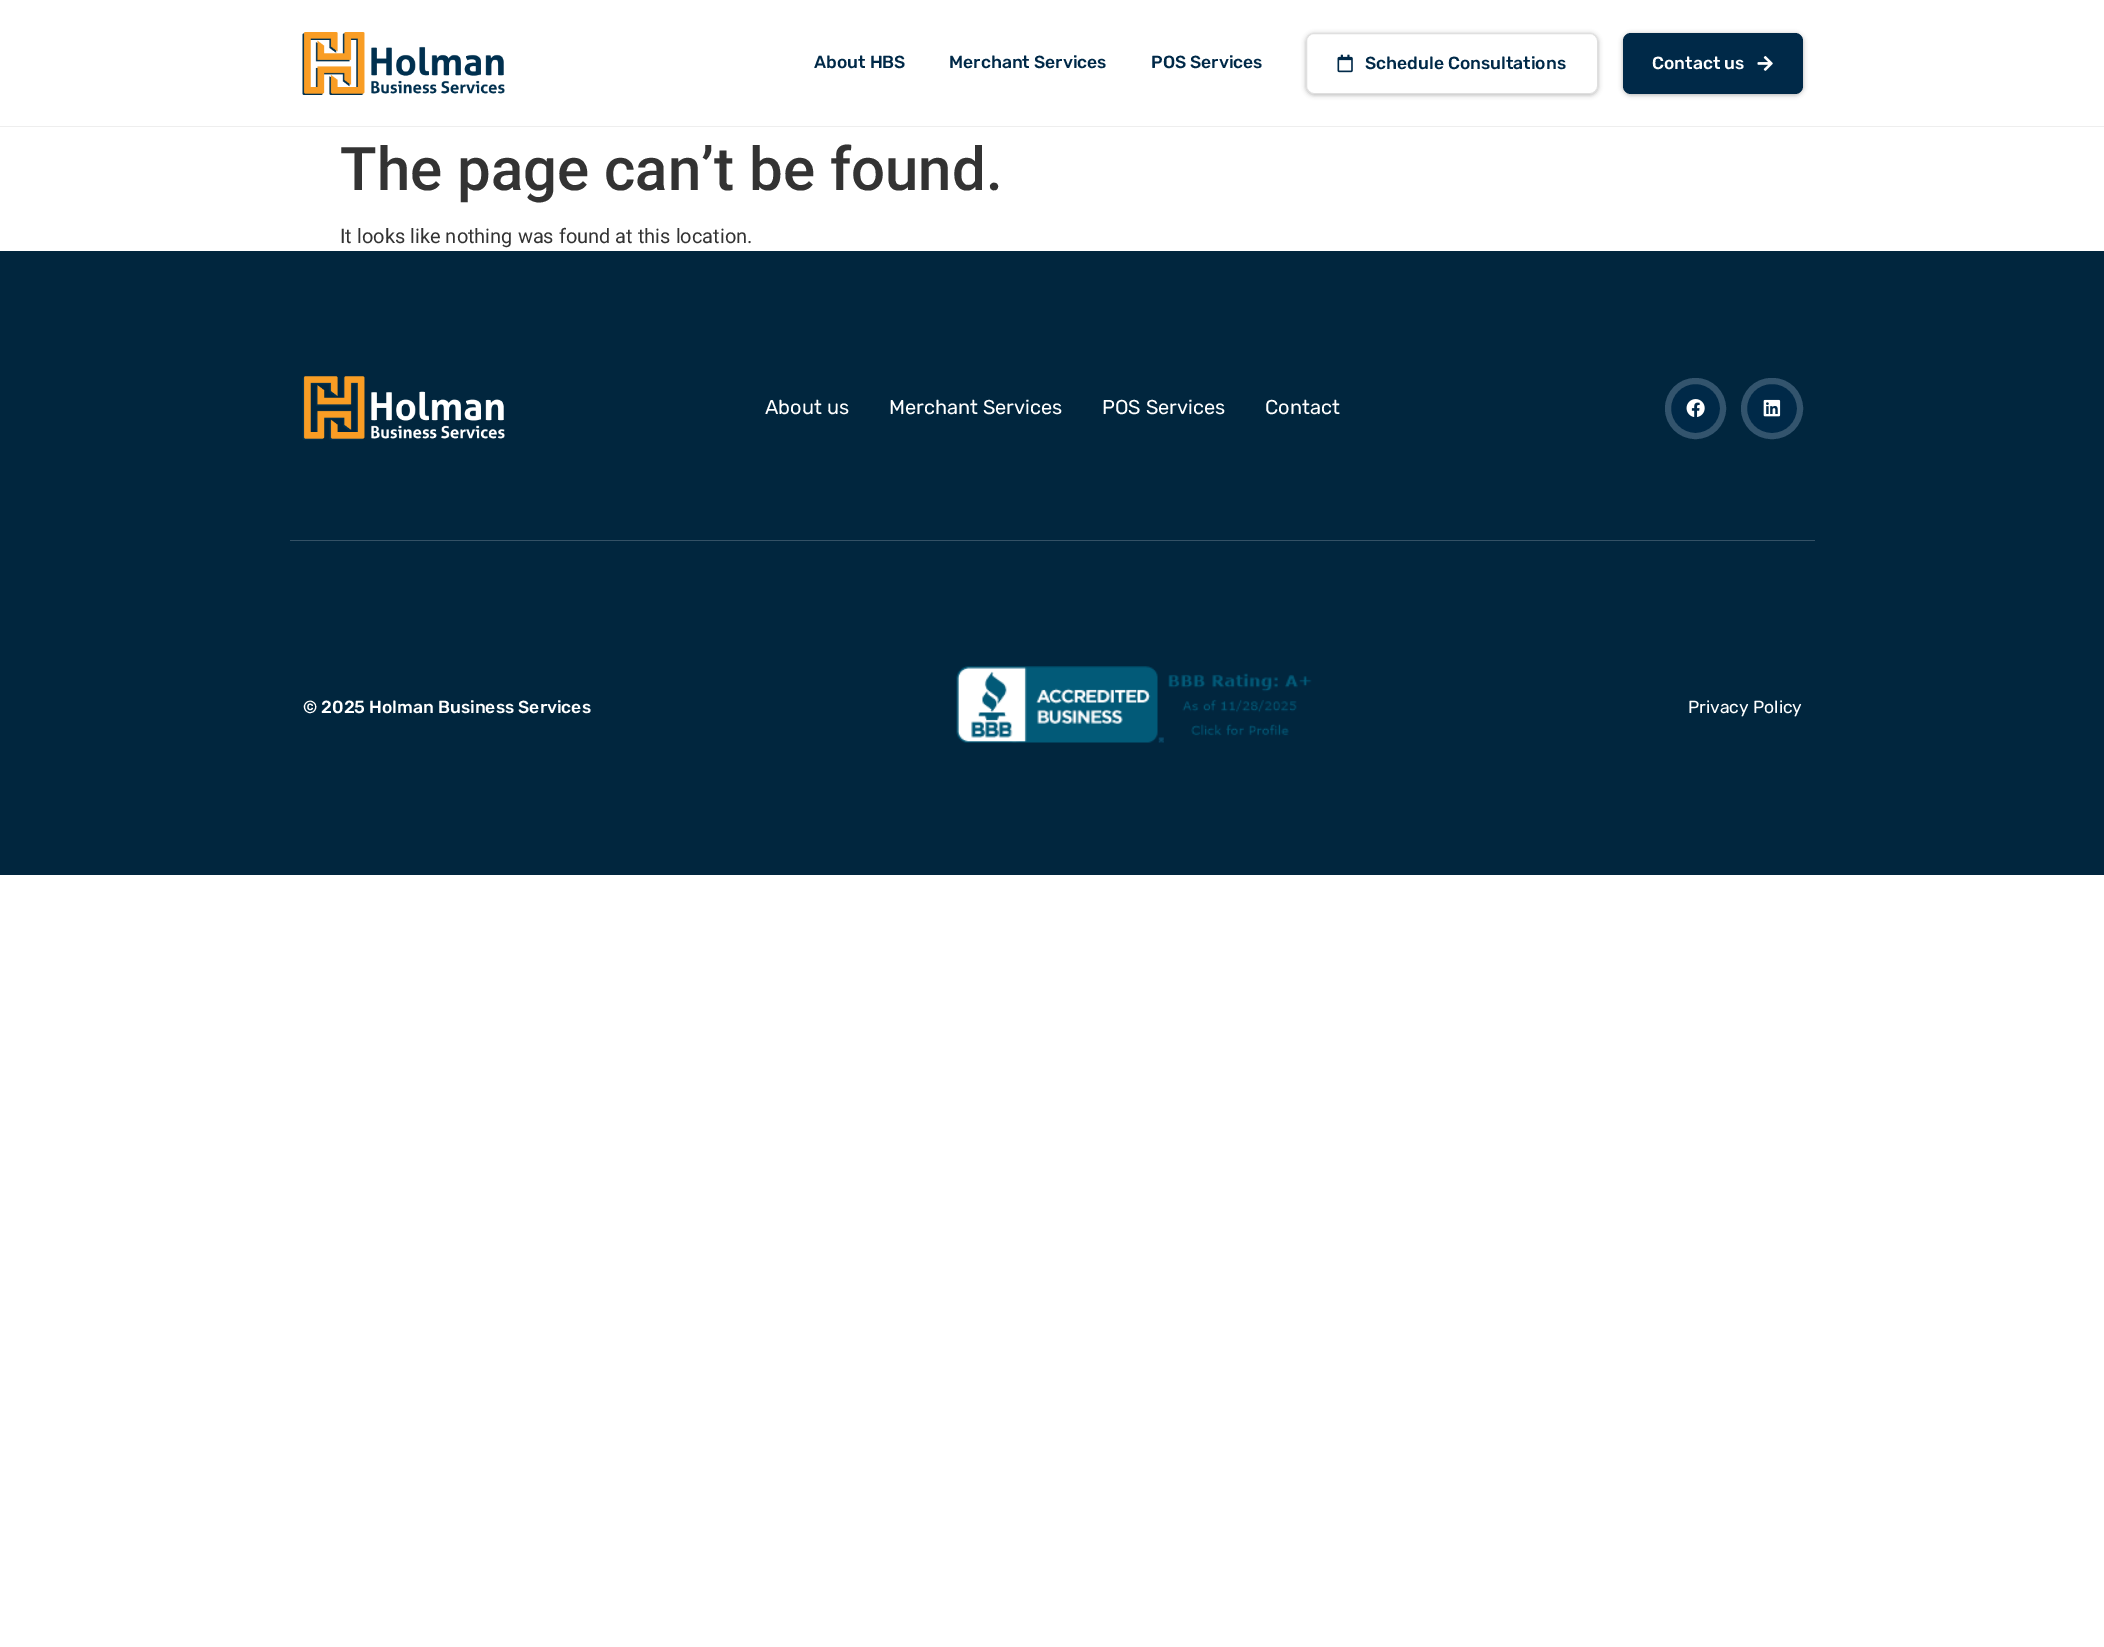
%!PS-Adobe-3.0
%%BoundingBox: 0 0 2104 1647
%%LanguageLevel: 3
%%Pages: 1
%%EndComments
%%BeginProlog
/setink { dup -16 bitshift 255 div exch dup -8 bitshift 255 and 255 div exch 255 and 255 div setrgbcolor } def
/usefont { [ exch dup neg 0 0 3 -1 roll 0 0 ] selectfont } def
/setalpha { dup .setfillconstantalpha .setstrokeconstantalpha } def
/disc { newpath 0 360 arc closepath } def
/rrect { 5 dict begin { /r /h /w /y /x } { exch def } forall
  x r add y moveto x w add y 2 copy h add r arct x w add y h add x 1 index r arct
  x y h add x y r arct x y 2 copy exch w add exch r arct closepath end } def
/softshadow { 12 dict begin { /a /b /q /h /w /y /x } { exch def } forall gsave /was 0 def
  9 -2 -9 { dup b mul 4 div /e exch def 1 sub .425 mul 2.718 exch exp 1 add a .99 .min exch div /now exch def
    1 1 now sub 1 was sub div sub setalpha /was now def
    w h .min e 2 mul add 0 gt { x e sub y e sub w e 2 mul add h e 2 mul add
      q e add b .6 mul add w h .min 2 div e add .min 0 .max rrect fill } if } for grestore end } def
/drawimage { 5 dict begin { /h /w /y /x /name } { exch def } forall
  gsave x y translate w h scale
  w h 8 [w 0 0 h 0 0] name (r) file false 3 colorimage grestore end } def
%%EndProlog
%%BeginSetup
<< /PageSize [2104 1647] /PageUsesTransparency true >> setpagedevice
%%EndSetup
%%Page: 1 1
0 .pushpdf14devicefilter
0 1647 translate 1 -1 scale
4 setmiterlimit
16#FFFFFF setink
0 0 2104 1647 rectfill
16#EEEEEE setink
0 126 2104 1 rectfill
(img1.raw) 302 32 203 63 drawimage
/Rubik-Medium 17.5 usefont
16#002948 setink
[
    [(About HBS) 814 68]
    [(Merchant Services) 949 68]
    [(POS Services) 1151 68]
] { aload pop moveto show } forall
16#000000 setink
1306 34 292 61 8 2.5 0.3 softshadow
16#FFFFFF setink
1306.5 33.5 291 60 7.5 rrect gsave fill grestore
16#DFDFDF setink
stroke
(img2.raw) 1337 54 16 19 drawimage
16#002948 setink
1365 69 moveto (Schedule Consultations) show
16#000000 setink
1623 34 180 61 8 2.5 0.3 softshadow
16#002948 setink
1623 33 180 61 8 rrect fill
16#FFFFFF setink
1652 69 moveto (Contact us) show
(img3.raw) 1757 56 16 15 drawimage
/Roboto-Medium 60 usefont
16#333333 setink
340 190 moveto (The page can’t be found.) show
/Roboto-Regular 20 usefont
340 243 moveto (It looks like nothing was found at this location.) show
16#01263E setink
0 251 2104 624 rectfill
(img4.raw) 302 376 203 64 drawimage
/Rubik-Regular 20 usefont
16#FFFFFF setink
[
    [(About us) 765 414]
    [(Merchant Services) 889 414]
    [(POS Services) 1102 414]
    [(Contact) 1265 414]
] { aload pop moveto show } forall
16#002948 setink
1695.5 408.5 30.5 disc fill
0.2 setalpha
16#FFFFFF setink
6 setlinewidth
1695.5 408.5 27.5 disc stroke
1 setalpha
(img5.raw) 1686 399 19 18 drawimage
16#002948 setink
1741 378 62 61 30.5 rrect fill
0.2 setalpha
16#FFFFFF setink
1744 381 56 55 27.5 rrect stroke
1 setalpha
(img6.raw) 1763 399 18 18 drawimage
16#345165 setink
290 540 1525 1 rectfill
/Rubik-Medium 17.5 usefont
16#FFFFFF setink
303 713 moveto (© 2025 Holman Business Services) show
(img7.raw) 956 666 356 77 drawimage
/Rubik-Regular 17.5 usefont
1688 713 moveto (Privacy Policy) show
.poppdf14devicefilter showpage
%%EOF
